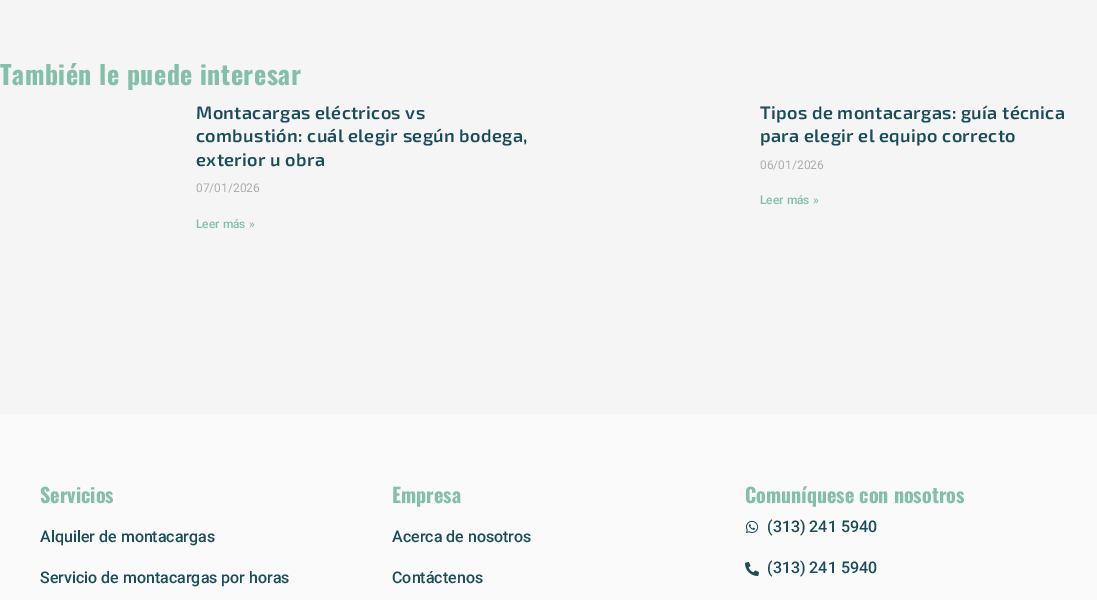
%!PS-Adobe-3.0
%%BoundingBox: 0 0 1097 600
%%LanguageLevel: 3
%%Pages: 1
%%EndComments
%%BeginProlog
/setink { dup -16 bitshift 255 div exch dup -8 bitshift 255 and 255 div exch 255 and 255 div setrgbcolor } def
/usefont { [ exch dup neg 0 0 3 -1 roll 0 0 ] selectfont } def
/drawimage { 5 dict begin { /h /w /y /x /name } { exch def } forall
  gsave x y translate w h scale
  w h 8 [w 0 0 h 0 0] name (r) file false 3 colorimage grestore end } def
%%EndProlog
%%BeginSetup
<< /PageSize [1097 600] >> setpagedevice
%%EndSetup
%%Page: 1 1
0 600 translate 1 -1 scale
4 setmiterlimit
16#F5F5F5 setink
0 0 1097 600 rectfill
/Oswald-Bold 26 usefont
16#84BFAA setink
0 85 moveto 0.5 0 (También le puede interesar) ashow
/Exo2-SemiBold 18 usefont
16#1A4D59 setink
196 119 moveto 0.35 0 (Montacargas eléctricos vs) ashow
196 142 moveto 0.35 0 (combustión: cuál elegir según bodega,) ashow
196 166 moveto 0.35 0 (exterior u obra) ashow
/Roboto-Regular 12 usefont
16#ADADAD setink
196 192 moveto (07/01/2026) show
/Roboto-Medium 12 usefont
16#84BFAA setink
196 228 moveto (Leer más ») show
/Exo2-SemiBold 18 usefont
16#1A4D59 setink
760 119 moveto 0.35 0 (Tipos de montacargas: guía técnica) ashow
760 142 moveto 0.35 0 (para elegir el equipo correcto) ashow
/Roboto-Regular 12 usefont
16#ADADAD setink
760 169 moveto (06/01/2026) show
/Roboto-Medium 12 usefont
16#84BFAA setink
760 204 moveto (Leer más ») show
16#FAFAFA setink
0 414 1097 186 rectfill
/Oswald-Bold 20 usefont
16#84BFAA setink
40 503 moveto (Servicios) show
/Roboto-Medium 16 usefont
16#1A4D59 setink
40 542 moveto (Alquiler de montacargas) show
40 583 moveto (Servicio de montacargas por horas) show
/Oswald-Bold 20 usefont
16#84BFAA setink
392 503 moveto (Empresa) show
/Roboto-Medium 16 usefont
16#1A4D59 setink
392 542 moveto (Acerca de nosotros) show
392 583 moveto (Contáctenos) show
/Oswald-Bold 20 usefont
16#84BFAA setink
745 503 moveto (Comuníquese con nosotros) show
(img1.raw) 745 520 14 13 drawimage
/Roboto-Medium 16 usefont
16#1A4D59 setink
767 532 moveto (\(313\) 241 5940) show
(img2.raw) 745 562 14 14 drawimage
767 573 moveto (\(313\) 241 5940) show
showpage
%%EOF
